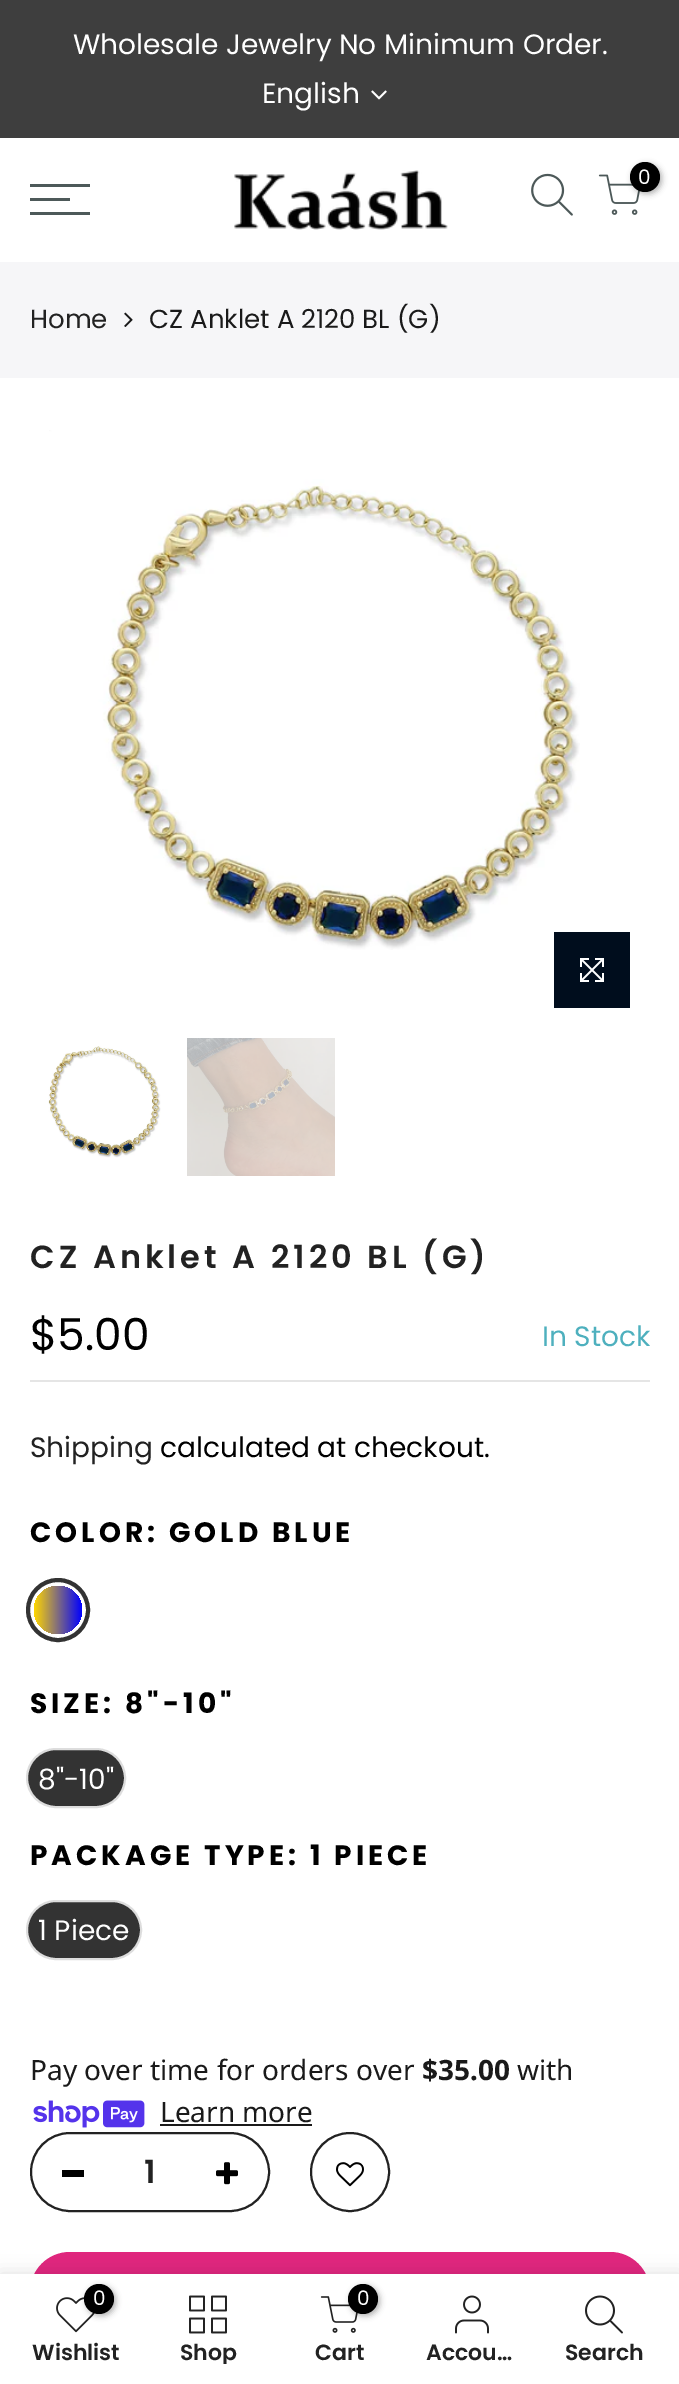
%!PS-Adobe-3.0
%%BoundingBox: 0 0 679 2384
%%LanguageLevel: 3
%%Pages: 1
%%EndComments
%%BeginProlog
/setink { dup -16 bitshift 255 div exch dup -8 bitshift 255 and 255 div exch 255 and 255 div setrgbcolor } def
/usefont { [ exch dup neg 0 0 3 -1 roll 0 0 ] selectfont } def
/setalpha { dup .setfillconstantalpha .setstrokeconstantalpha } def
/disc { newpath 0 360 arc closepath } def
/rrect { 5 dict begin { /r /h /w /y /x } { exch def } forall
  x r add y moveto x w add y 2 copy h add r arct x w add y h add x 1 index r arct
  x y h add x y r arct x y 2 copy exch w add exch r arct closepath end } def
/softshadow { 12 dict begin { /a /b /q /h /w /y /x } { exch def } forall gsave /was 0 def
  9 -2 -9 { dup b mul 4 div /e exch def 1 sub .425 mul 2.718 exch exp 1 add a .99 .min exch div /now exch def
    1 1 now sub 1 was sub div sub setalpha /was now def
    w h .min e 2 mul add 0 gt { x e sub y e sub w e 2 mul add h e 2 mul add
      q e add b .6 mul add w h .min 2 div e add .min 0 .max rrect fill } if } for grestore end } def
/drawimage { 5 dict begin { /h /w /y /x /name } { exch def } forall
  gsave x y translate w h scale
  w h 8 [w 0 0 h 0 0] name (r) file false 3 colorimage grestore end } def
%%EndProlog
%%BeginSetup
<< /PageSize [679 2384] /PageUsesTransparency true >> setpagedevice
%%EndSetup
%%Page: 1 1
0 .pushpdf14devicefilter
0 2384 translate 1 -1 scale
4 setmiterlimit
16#FFFFFF setink
0 0 679 2384 rectfill
16#3E3E3E setink
0 0 679 138 rectfill
/Poppins-Regular 28 usefont
16#FFFFFF setink
73 54 moveto (Wholesale Jewelry No Minimum Order.) show
262 103 moveto (English) show
(img1.raw) 371 90 16 10 drawimage
[
    [30 184 60 3 16#4D5959]
    [30 198 40 3 16#4D5959]
    [30 212 60 3 16#4D5959]
] { aload pop setink rectfill } forall
(img2.raw) 234 170 214 60 drawimage
(img3.raw) 531 173 42 43 drawimage
(img4.raw) 598 174 42 41 drawimage
16#000000 setink
632 164 30 30 15 3 0.3 softshadow
645 177 15 disc fill
/Poppins-Regular 20 usefont
16#FFFFFF setink
638 184 moveto (0) show
16#F6F6F8 setink
0 262 679 116 rectfill
/Poppins-Regular 26 usefont
16#222222 setink
30 328 moveto (Home) show
(img5.raw) 124 312 9 15 drawimage
16#1A1A1A setink
149 328 moveto (CZ Anklet A 2120 BL \(G\)) show
(img6.raw) 49 430 531 520 drawimage
16#000D1D setink
554 932 76 76 rectfill
(img7.raw) 580 958 24 24 drawimage
(img8.raw) 48 1046 113 112 drawimage
(img9.raw) 187 1038 148 138 drawimage
/Poppins-SemiBold 32 usefont
16#222222 setink
30 1268 moveto 4 0 (CZ Anklet A 2120 BL \(G\)) ashow
16#E5E5E5 setink
30 1380 620 2 rectfill
/Poppins-Regular 44 usefont
16#000000 setink
30 1350 moveto ($5.00) show
/Poppins-Regular 28 usefont
16#4EB0BE setink
542 1346 moveto (In Stock) show
16#222222 setink
30 1457 moveto (Shipping) show
16#000000 setink
160 1457 moveto (calculated at checkout.) show
/Poppins-Bold 28 usefont
30 1542 moveto 4 0 (COLOR: GOLD BLUE) ashow
16#333333 setink
4 setlinewidth
58 1610 30 disc stroke
gsave 58 1610 24 disc clip newpath
<< /ShadingType 2 /ColorSpace /DeviceRGB /Coords [34 1610 82 1610] /Extend [true true] /Function << /FunctionType 2 /Domain [0 1] /C0 [1 0.843 0] /C1 [0 0 1] /N 1 >> >> shfill grestore
16#000000 setink
30 1713 moveto 4 0 (SIZE: 8"-10") ashow
16#333333 setink
27 1749 98 58 29 rrect gsave fill grestore
16#DDDDDD setink
2 setlinewidth
stroke
/Poppins-Regular 28 usefont
16#FFFFFF setink
38 1789 moveto (8"-10") show
/Poppins-Bold 28 usefont
16#000000 setink
30 1865 moveto 4 0 (PACKAGE TYPE: 1 PIECE) ashow
16#333333 setink
27 1901 114 58 29 rrect gsave fill grestore
16#DDDDDD setink
stroke
/Poppins-Regular 28 usefont
16#FFFFFF setink
38 1940 moveto (1 Piece) show
/NotoSans-Regular 28 usefont
16#1A1A1A setink
30 2080 moveto (Pay over time for orders over) show
/NotoSans-Bold 28 usefont
422 2080 moveto ($35.00) show
/NotoSans-Regular 28 usefont
517 2080 moveto (with) show
(img10.raw) 33 2100 112 28 drawimage
160 2122 moveto (Learn more) show
160 2124 152 2 rectfill
16#222222 setink
31 2133 238 78 39 rrect stroke
/Poppins-SemiBold 32 usefont
144 2183 moveto (1) show
16#000000 setink
62 2170 22 7 rectfill
(img11.raw) 216 2162 22 23 drawimage
16#222222 setink
350 2172 39 disc stroke
(img12.raw) 336 2162 28 25 drawimage
16#FFFFFF setink
338 2162 moveto 341 2159 345.5 2157 350 2157 curveto 370.5 2157 373.5 2186.5 353.5 2190.5 curveto 348 2192 342 2190 338 2186 curveto stroke
16#E0267D setink
30 2252 620 80 40 rrect fill
16#000000 setink
0 2274 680 110 0 9 0.12 softshadow
16#FFFFFF setink
0 2274 679 110 rectfill
(img13.raw) 56 2297 39 36 drawimage
16#000000 setink
86 2286 30 30 15 3 0.3 softshadow
99 2299 15 disc fill
/Poppins-Regular 20 usefont
16#FFFFFF setink
93 2305 moveto (0) show
/Poppins-SemiBold 22 usefont
16#222222 setink
32 2360 moveto (Wishlist) show
(img14.raw) 189 2295 38 39 drawimage
gsave
162 2342 92 22 rectclip
180 2360 moveto (Shop) show
grestore
(img15.raw) 320 2296 38 37 drawimage
16#000000 setink
350 2286 30 30 15 3 0.3 softshadow
363 2299 15 disc fill
/Poppins-Regular 20 usefont
16#FFFFFF setink
357 2305 moveto (0) show
/Poppins-SemiBold 22 usefont
16#222222 setink
315 2360 moveto (Cart) show
(img16.raw) 455 2295 34 39 drawimage
426 2360 moveto (Accou…) show
(img17.raw) 585 2295 38 39 drawimage
565 2360 moveto (Search) show
.poppdf14devicefilter showpage
%%EOF
